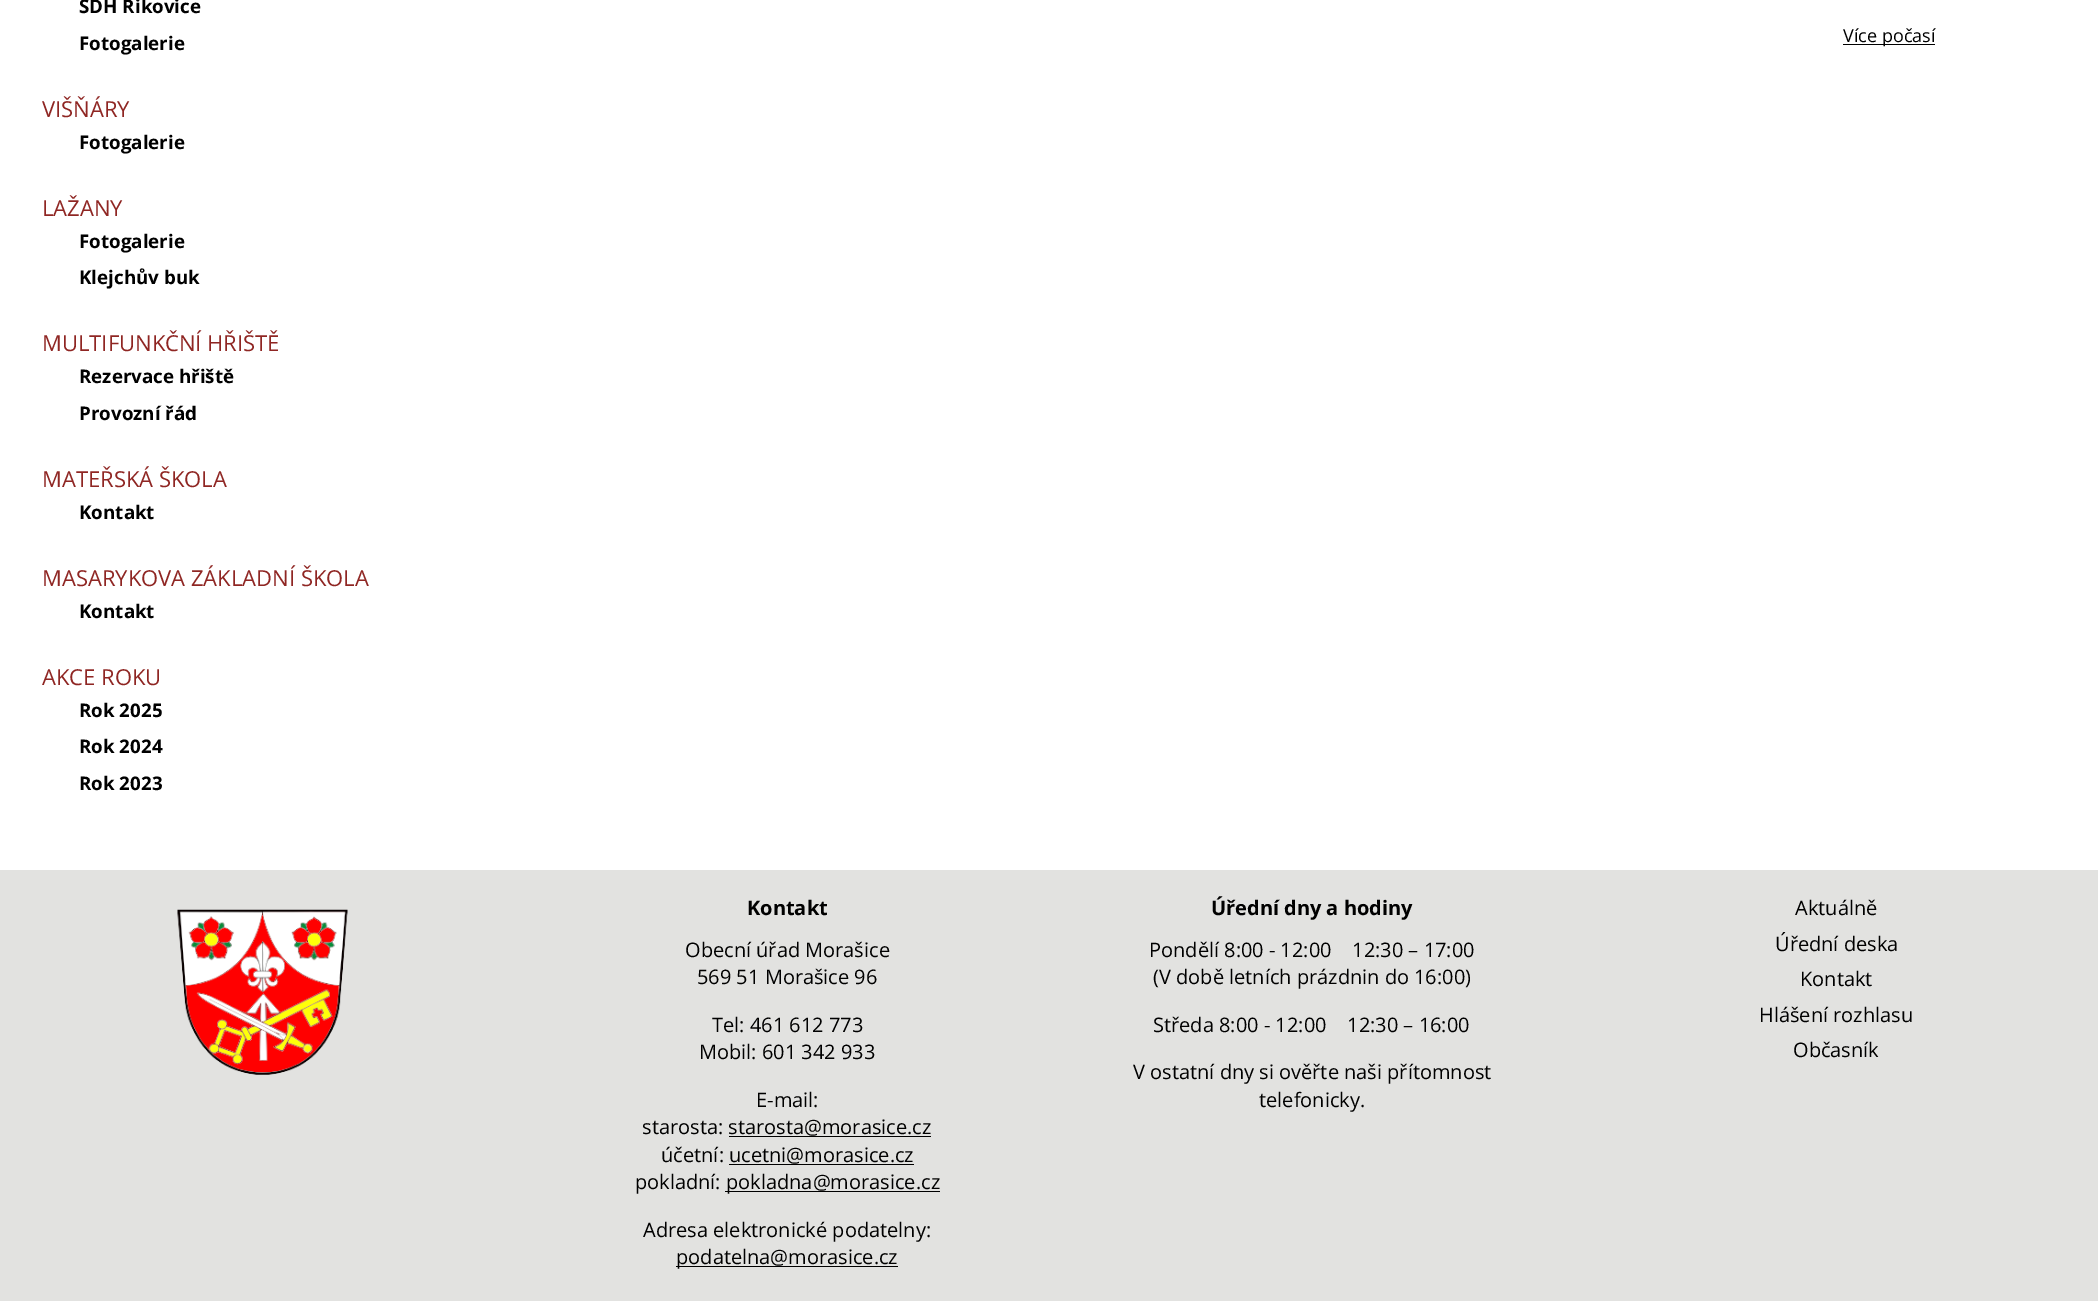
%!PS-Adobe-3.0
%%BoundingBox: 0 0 2098 1304
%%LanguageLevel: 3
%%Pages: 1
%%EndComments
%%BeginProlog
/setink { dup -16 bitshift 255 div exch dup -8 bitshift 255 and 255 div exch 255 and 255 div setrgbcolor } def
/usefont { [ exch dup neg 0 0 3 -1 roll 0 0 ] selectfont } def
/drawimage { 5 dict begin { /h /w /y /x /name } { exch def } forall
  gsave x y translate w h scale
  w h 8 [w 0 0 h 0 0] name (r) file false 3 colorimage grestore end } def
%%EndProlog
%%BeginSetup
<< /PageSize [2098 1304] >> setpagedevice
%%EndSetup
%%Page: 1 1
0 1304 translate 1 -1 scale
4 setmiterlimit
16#FFFFFF setink
0 0 2098 1304 rectfill
/OpenSans-Bold 18.75 usefont
16#000000 setink
79 13 moveto (SDH Řikovice) show
79 50 moveto (Fotogalerie) show
/OpenSans-Regular 22 usefont
16#8F2623 setink
42 117 moveto (VIŠŇÁRY) show
/OpenSans-Bold 18.75 usefont
16#000000 setink
79 149 moveto (Fotogalerie) show
/OpenSans-Regular 22 usefont
16#8F2623 setink
42 216 moveto (LAŽANY) show
/OpenSans-Bold 18.75 usefont
16#000000 setink
79 248 moveto (Fotogalerie) show
79 284 moveto (Klejchův buk) show
/OpenSans-Regular 22 usefont
16#8F2623 setink
42 351 moveto (MULTIFUNKČNÍ HŘIŠTĚ) show
/OpenSans-Bold 18.75 usefont
16#000000 setink
79 383 moveto (Rezervace hřiště) show
79 420 moveto (Provozní řád) show
/OpenSans-Regular 22 usefont
16#8F2623 setink
42 487 moveto (MATEŘSKÁ ŠKOLA) show
/OpenSans-Bold 18.75 usefont
16#000000 setink
79 519 moveto (Kontakt) show
/OpenSans-Regular 22 usefont
16#8F2623 setink
42 586 moveto (MASARYKOVA ZÁKLADNÍ ŠKOLA) show
/OpenSans-Bold 18.75 usefont
16#000000 setink
79 618 moveto (Kontakt) show
/OpenSans-Regular 22 usefont
16#8F2623 setink
42 685 moveto (AKCE ROKU) show
/OpenSans-Bold 18.75 usefont
16#000000 setink
[
    [(Rok 2025) 79 717]
    [(Rok 2024) 79 753]
    [(Rok 2023) 79 790]
] { aload pop moveto show } forall
1843 44 92 1 rectfill
/OpenSans-Regular 18 usefont
1843 42 moveto (Více počasí) show
16#E2E2E0 setink
0 870 2098 431 rectfill
(img1.raw) 177 909 171 166 drawimage
/OpenSans-Bold 20 usefont
16#000000 setink
747 915 moveto (Kontakt) show
/OpenSans-Regular 20 usefont
[
    [(Obecní úřad Morašice) 685 957]
    [(569 51 Morašice 96) 697 984]
    [(Tel: 461 612 773) 712 1032]
    [(Mobil: 601 342 933) 699 1059]
    [(E-mail:) 756 1107]
    [(starosta: starosta@morasice.cz) 642 1134]
] { aload pop moveto show } forall
729 1136 202 1 rectfill
661 1162 moveto (účetní: ucetni@morasice.cz) show
729 1164 185 1 rectfill
635 1189 moveto (pokladní:) show
725 1191 215 1 rectfill
726 1189 moveto (pokladna@morasice.cz) show
643 1237 moveto (Adresa elektronické podatelny:) show
676 1266 222 1 rectfill
676 1264 moveto (podatelna@morasice.cz) show
/OpenSans-Bold 20 usefont
1211 915 moveto (Úřední dny a hodiny) show
/OpenSans-Regular 20 usefont
[
    [(Pondělí 8:00 - 12:00    12:30 – 17:00) 1149 957]
    [(\(V době letních prázdnin do 16:00\)) 1153 984]
    [(Středa 8:00 - 12:00    12:30 – 16:00) 1153 1032]
    [(V ostatní dny si ověřte naši přítomnost) 1133 1079]
    [(telefonicky.) 1259 1107]
    [(Aktuálně) 1795 915]
    [(Úřední deska) 1775 951]
    [(Kontakt) 1800 986]
    [(Hlášení rozhlasu) 1759 1022]
    [(Občasník) 1793 1057]
] { aload pop moveto show } forall
showpage
%%EOF
